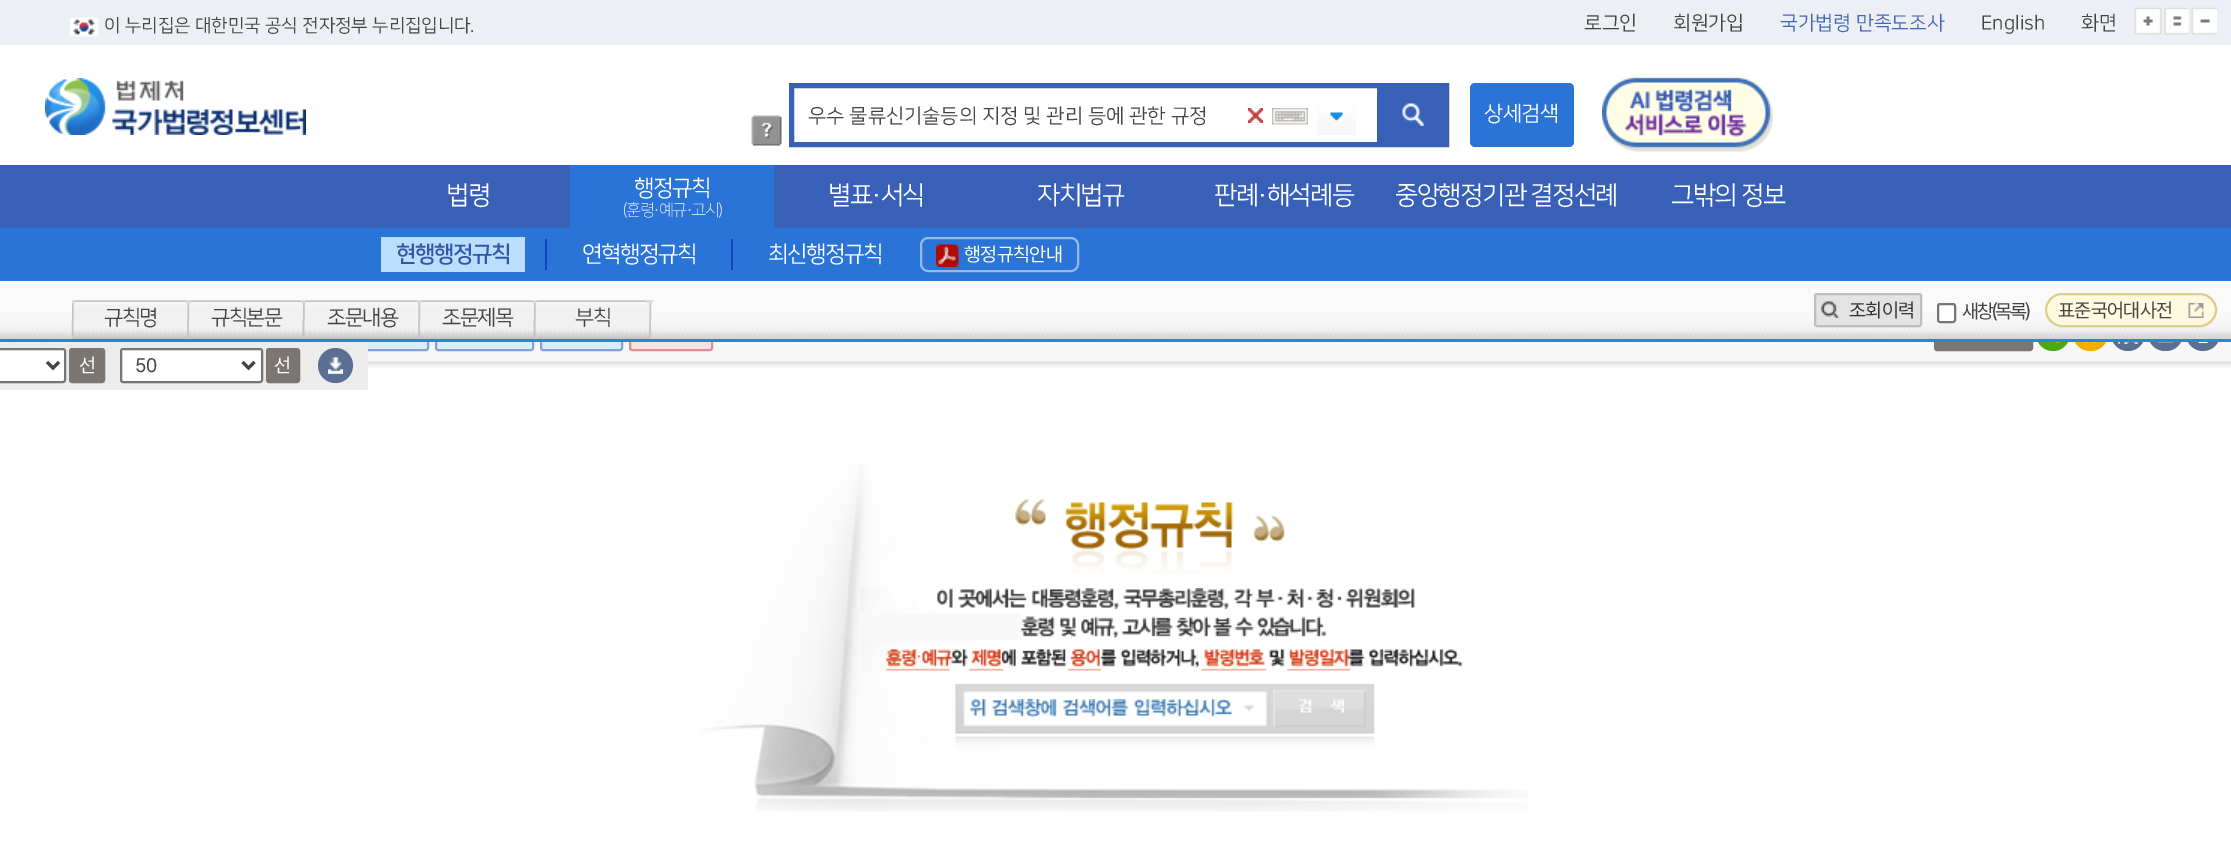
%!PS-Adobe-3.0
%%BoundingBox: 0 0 2231 845
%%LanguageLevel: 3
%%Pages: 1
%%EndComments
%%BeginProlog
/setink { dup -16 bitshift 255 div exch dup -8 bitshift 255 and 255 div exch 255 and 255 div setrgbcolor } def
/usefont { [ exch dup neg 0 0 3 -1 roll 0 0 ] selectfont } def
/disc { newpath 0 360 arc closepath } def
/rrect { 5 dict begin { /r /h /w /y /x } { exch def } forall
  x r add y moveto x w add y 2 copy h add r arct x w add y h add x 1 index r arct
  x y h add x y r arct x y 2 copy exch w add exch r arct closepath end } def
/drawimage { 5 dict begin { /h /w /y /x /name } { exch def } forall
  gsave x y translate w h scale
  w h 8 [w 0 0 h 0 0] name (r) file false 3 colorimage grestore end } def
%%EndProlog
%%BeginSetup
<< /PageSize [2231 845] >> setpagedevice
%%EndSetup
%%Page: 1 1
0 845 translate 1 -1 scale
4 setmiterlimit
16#FFFFFF setink
0 0 2231 845 rectfill
16#ECF0F4 setink
0 0 2231 45 rectfill
(img1.raw) 69 17 30 20 drawimage
/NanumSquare-Regular 18 usefont
16#444444 setink
104 31 moveto (이 누리집은 대한민국 공식 전자정부 누리집입니다.) show
/NanumSquare-Regular 19.5 usefont
1584 29 moveto (로그인) show
1673 29 moveto (회원가입) show
16#4366BA setink
1780 29 moveto (국가법령 만족도조사) show
16#444444 setink
1981 29 moveto (English) show
2081 29 moveto (화면) show
(img2.raw) 2134 7 28 28 drawimage
(img3.raw) 2164 7 25 28 drawimage
(img4.raw) 2191 7 26 28 drawimage
(img5.raw) 45 78 261 57 drawimage
(img6.raw) 751 115 31 31 drawimage
16#3860B7 setink
5 setlinewidth
791.5 85.5 655 59 rectstroke
/NanumSquare-Regular 20 usefont
16#444444 setink
808 122 moveto (우수 물류신기술등의 지정 및 관리 등에 관한 규정) show
(img7.raw) 1248 108 15 15 drawimage
(img8.raw) 1272 108 36 17 drawimage
(img9.raw) 1317 101 39 34 drawimage
16#3860B7 setink
1377 88 67 54 rectfill
(img10.raw) 1402 103 22 23 drawimage
(img11.raw) 1602 76 171 76 drawimage
0 165 2231 63 rectfill
16#2974D6 setink
1470 83 104 64 5 rrect fill
/NanumSquare-Regular 21 usefont
16#FFFFFF setink
1484 120 moveto -0.5 0 (상세검색) ashow
16#2974D6 setink
0 228 2231 53 rectfill
16#BBDEFF setink
381 237 144 35 rectfill
/NanumSquare-Bold 22.5 usefont
16#2F57A7 setink
396 261 moveto -1.5 0 (현행행정규칙) ashow
16#1045BD setink
545 239 2 31 rectfill
/NanumSquare-Regular 22.5 usefont
16#FFFFFF setink
582 261 moveto -1.5 0 (연혁행정규칙) ashow
16#1045BD setink
731 239 2 31 rectfill
16#FFFFFF setink
768 261 moveto -1.5 0 (최신행정규칙) ashow
16#94BAEB setink
2 setlinewidth
921 238 157 33 7 rrect stroke
(img12.raw) 936 244 23 23 drawimage
/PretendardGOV-Regular 19.5 usefont
16#FFFFFF setink
964 261 moveto -0.5 0 (행정규칙안내) ashow
16#2974D6 setink
570 165 204 63 rectfill
/NanumSquare-Regular 22.5 usefont
16#FFFFFF setink
634 195 moveto -1.5 0 (행정규칙) ashow
/NanumSquare-Light 16.5 usefont
623 215 moveto -1.5 0 (\(훈령·예규·고시\)) ashow
/NanumSquare-Regular 25.5 usefont
446 203 moveto -1.5 0 (법령) ashow
828 203 moveto -1.5 0 (별표·서식) ashow
1037 203 moveto -1.5 0 (자치법규) ashow
1214 203 moveto -1.5 0 (판례·해석례등) ashow
1395 203 moveto -1.5 0 (중앙행정기관 결정선례) ashow
1671 203 moveto -1.5 0 (그밖의 정보) ashow
16#F7F7F7 setink
368 342 1863 26 rectfill
16#D9EFFD setink
348 318 80 32 2 rrect gsave fill grestore
16#81A2DF setink
stroke
16#D9EFFD setink
436 318 97 32 2 rrect gsave fill grestore
16#81A2DF setink
stroke
16#D9EFFD setink
541 318 81 32 2 rrect gsave fill grestore
16#81A2DF setink
stroke
16#F7E2E2 setink
630 318 82 32 2 rrect gsave fill grestore
16#E28D8D setink
stroke
16#7B7671 setink
1935 318 97 32 2 rrect gsave fill grestore
stroke
16#4EA713 setink
2053 334 17 disc fill
16#F3AC00 setink
2073 317 35 34 17 rrect fill
16#5B6E93 setink
2128 334 17 disc fill
2148 317 35 34 17 rrect fill
2203 334 17 disc fill
(img13.raw) 0 281 2231 58 drawimage
16#198CDC setink
0 339 2231 3 rectfill
(img14.raw) 72 303 117 35 drawimage
16#C5C5C5 setink
1.5 setlinewidth
73 301 moveto 188.5 301 lineto 188 338 lineto 72.5 338 lineto closepath stroke
16#DCDCDC setink
186 300 3 3 rectfill
(img15.raw) 187 301 118 37 drawimage
16#C5C5C5 setink
188.5 301 moveto 304 301 lineto 303.5 338 lineto 188 338 lineto closepath stroke
16#DCDCDC setink
301 300 4 3 rectfill
(img16.raw) 303 301 117 37 drawimage
16#C5C5C5 setink
304 301 moveto 419.5 301 lineto 419 338 lineto 303.5 338 lineto closepath stroke
16#DCDCDC setink
417 300 3 3 rectfill
(img17.raw) 418 301 118 37 drawimage
16#C5C5C5 setink
419.5 301 moveto 535 301 lineto 534.5 338 lineto 419 338 lineto closepath stroke
16#DCDCDC setink
532 300 4 3 rectfill
(img18.raw) 534 301 117 37 drawimage
16#C5C5C5 setink
535 301 moveto 650.5 301 lineto 650 338 lineto 534.5 338 lineto closepath stroke
16#DCDCDC setink
646 300 7 3 rectfill
72 300 3 3 rectfill
/NanumSquare-Regular 21 usefont
16#444444 setink
104 324 moveto -1.5 0 (규칙명) ashow
16#DCDCDC setink
187 300 4 3 rectfill
16#444444 setink
211 324 moveto -1.5 0 (규칙본문) ashow
16#DBDBDB setink
303 300 3 3 rectfill
16#444444 setink
327 324 moveto -1.5 0 (조문내용) ashow
16#DCDCDC setink
418 300 4 3 rectfill
16#444444 setink
442 324 moveto -1.5 0 (조문제목) ashow
16#DCDCDC setink
534 300 3 3 rectfill
16#444444 setink
575 324 moveto -1.5 0 (부칙) ashow
16#E3E3E3 setink
1815 294 106 32 2 rrect gsave fill grestore
16#BEBEBE setink
2 setlinewidth
stroke
(img19.raw) 1821 301 18 17 drawimage
/PretendardGOV-Regular 19.5 usefont
16#333333 setink
1849 317 moveto -0.5 0 (조회이력) ashow
16#FFFFFF setink
1938 304 17 18 2 rrect gsave fill grestore
16#767676 setink
stroke
16#444444 setink
1962 318 moveto -2 0 (새창\(목록\)) ashow
16#FFF9DF setink
2046 294 170 32 16 rrect gsave fill grestore
16#DDCE8B setink
stroke
16#444444 setink
2058 317 moveto -0.5 0 (표준국어대사전) ashow
(img20.raw) 2188 303 16 15 drawimage
16#ECECEC setink
0 342 368 48 rectfill
16#FFFFFF setink
-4 349 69 33 2 rrect gsave fill grestore
16#767676 setink
stroke
16#444444 setink
3 setlinewidth
47 362 moveto 53 368 lineto 59 362 lineto stroke
16#7B7671 setink
70 349 34 33 2 rrect gsave fill grestore
2 setlinewidth
stroke
16#FFFFFF setink
79 372 moveto -0.5 0 (선) ashow
121 349 141 33 2 rrect gsave fill grestore
16#767676 setink
stroke
16#444444 setink
3 setlinewidth
242.5 362 moveto 248.5 368 lineto 254.5 362 lineto stroke
135 372 moveto (50) show
16#7B7671 setink
267 349 32 33 2 rrect gsave fill grestore
2 setlinewidth
stroke
16#FFFFFF setink
274 372 moveto -0.5 0 (선) ashow
16#5B6E93 setink
335.5 365.5 17.5 disc fill
(img21.raw) 328 357 16 17 drawimage
(img22.raw) 368 361 1863 5 drawimage
(img23.raw) 2054 342 7 1 drawimage
(img24.raw) 2084 342 13 1 drawimage
(img25.raw) 2118 342 20 2 drawimage
(img26.raw) 2158 342 15 1 drawimage
(img27.raw) 2198 342 10 2 drawimage
(img28.raw) 701 464 827 348 drawimage
(img29.raw) 1015 499 270 74 drawimage
(img30.raw) 861 588 602 83 drawimage
(img31.raw) 970 699 262 18 drawimage
(img32.raw) 1299 699 45 14 drawimage
showpage
%%EOF
